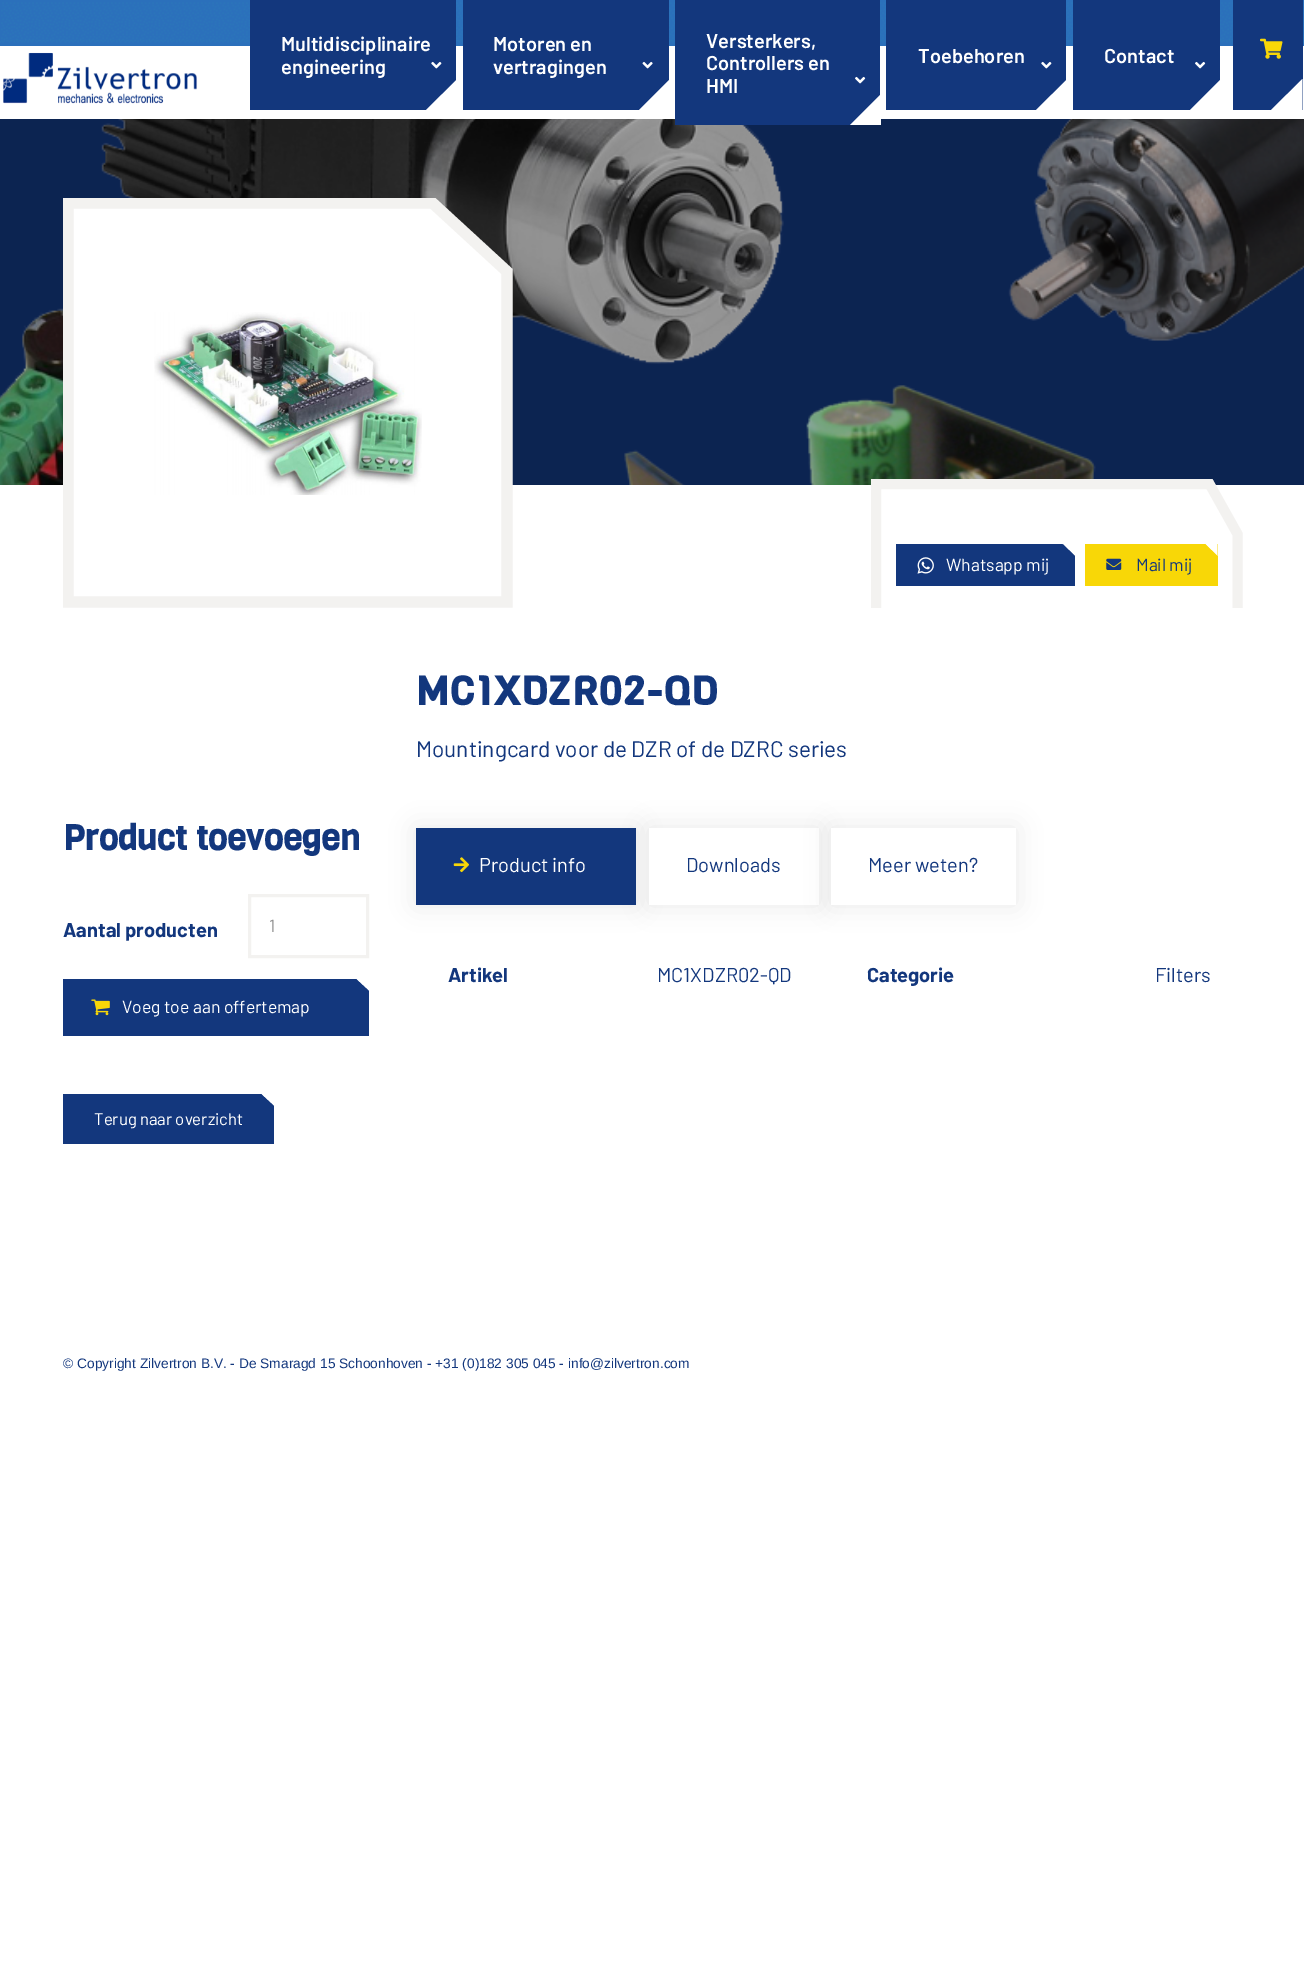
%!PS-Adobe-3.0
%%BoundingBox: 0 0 1304 1973
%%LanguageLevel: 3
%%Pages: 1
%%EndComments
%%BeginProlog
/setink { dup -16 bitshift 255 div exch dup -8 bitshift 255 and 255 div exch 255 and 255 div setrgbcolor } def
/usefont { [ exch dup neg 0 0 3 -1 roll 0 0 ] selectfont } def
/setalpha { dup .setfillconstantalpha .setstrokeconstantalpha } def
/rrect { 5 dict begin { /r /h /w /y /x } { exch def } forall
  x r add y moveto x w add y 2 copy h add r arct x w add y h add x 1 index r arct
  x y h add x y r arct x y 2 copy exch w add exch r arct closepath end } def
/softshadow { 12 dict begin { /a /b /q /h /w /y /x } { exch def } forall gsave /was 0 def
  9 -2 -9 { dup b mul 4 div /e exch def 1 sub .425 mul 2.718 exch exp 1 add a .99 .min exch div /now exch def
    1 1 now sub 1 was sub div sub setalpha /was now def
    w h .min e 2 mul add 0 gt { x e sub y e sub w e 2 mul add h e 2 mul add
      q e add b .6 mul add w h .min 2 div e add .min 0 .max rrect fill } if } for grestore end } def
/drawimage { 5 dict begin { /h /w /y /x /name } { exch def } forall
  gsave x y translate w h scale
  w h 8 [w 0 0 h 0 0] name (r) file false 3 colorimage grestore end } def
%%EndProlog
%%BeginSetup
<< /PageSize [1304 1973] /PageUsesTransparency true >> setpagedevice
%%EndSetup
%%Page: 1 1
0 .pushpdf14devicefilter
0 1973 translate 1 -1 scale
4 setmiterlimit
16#FFFFFF setink
0 0 1304 1973 rectfill
(img1.raw) 0 0 1304 46 drawimage
(img2.raw) 3 52 195 52 drawimage
16#13377D setink
250 0 206 110 rectfill
/Barlow-SemiBold 20 usefont
16#FFFFFF setink
281 51 moveto (Multidisciplinaire) show
281 74 moveto (engineering) show
(img3.raw) 431 61 11 8 drawimage
457.5 79 moveto 457.5 110 lineto 426 110 lineto closepath fill
16#13377D setink
463 0 206 110 rectfill
16#FFFFFF setink
493 51 moveto (Motoren en) show
493 74 moveto (vertragingen) show
(img4.raw) 642 61 11 8 drawimage
670 79 moveto 670 110 lineto 639 110 lineto closepath fill
(img7.raw) 0 119 1304 366 drawimage
0.35 setalpha
16#000000 setink
0 119 1304 366 rectfill
1 setalpha
16#13377D setink
675 0 205 125 rectfill
16#FFFFFF setink
[
    [(Versterkers,) 706 48]
    [(Controllers en) 706 70]
    [(HMI) 706 93]
] { aload pop moveto show } forall
(img5.raw) 855 76 11 8 drawimage
881 94 moveto 881 125 lineto 850 125 lineto closepath fill
16#13377D setink
886 0 180 110 rectfill
16#FFFFFF setink
918 63 moveto (Toebehoren) show
(img3.raw) 1041 61 11 8 drawimage
1067.5 79 moveto 1067.5 110 lineto 1036 110 lineto closepath fill
16#13377D setink
1073 0 147 110 rectfill
16#FFFFFF setink
1104 63 moveto (Contact) show
(img5.raw) 1195 61 11 8 drawimage
1221 79 moveto 1221 110 lineto 1190 110 lineto closepath fill
16#13377D setink
1233 0 70 110 rectfill
(img6.raw) 1260 38 23 21 drawimage
16#FFFFFF setink
1302.5 79 moveto 1302.5 110 lineto 1271 110 lineto closepath fill
68 203 moveto 68 602 lineto 507 602 lineto 507 272 lineto 433 203 lineto closepath eofill
gsave
63 198 450 410 rectclip
16#F3F2F0 setink
11.2 setlinewidth
68 203 moveto 68 602 lineto 507 602 lineto 507 271.5 lineto 432.5 203 lineto closepath stroke
grestore
(img8.raw) 154 312 268 183 drawimage
gsave
871 479 372 129 rectclip
876 484 moveto 876 739 lineto 1238 739 lineto 1238 534 lineto 1210 484 lineto closepath eofill
16#F3F2F0 setink
10 setlinewidth
876 484 moveto 876 739 lineto 1237.5 739 lineto 1237.5 534 lineto 1209.5 484 lineto closepath stroke
grestore
16#13377D setink
896 544 179 42 rectfill
16#FFFFFF setink
1062.5 544 moveto 1075 544 lineto 1075 556 lineto closepath fill
16#13377D setink
1062.5 556 moveto 1062.5 544 lineto 1075 556 lineto closepath fill
(img9.raw) 917 557 17 17 drawimage
/Barlow-Regular 17.5 usefont
16#FFFFFF setink
946 571 moveto (Whatsapp mij) show
16#F8D707 setink
1085 544 133 42 rectfill
16#FFFFFF setink
1205 544 moveto 1217.5 544 lineto 1217.5 556 lineto closepath fill
16#F8D707 setink
1205 556 moveto 1205 544 lineto 1217.5 556 lineto closepath fill
(img10.raw) 1106 558 16 12 drawimage
16#13377D setink
1136 571 moveto (Mail mij) show
/Viga-Bold 35 usefont
63 850 moveto (Product toevoegen) show
/Barlow-Bold 20 usefont
63 937 moveto (Aantal producten) show
16#F3F2F0 setink
3 setlinewidth
249.5 895.5 118 61 rectstroke
/Barlow-Regular 17.5 usefont
16#919191 setink
269 932 moveto (1) show
16#13377D setink
63 979 306 57 rectfill
16#FFFFFF setink
356 979 moveto 369 979 lineto 369 991 lineto closepath fill
16#13377D setink
356 991 moveto 356 979 lineto 369 991 lineto closepath fill
(img11.raw) 91 999 19 17 drawimage
16#FFFFFF setink
122 1013 moveto (Voeg toe aan offertemap) show
16#13377D setink
63 1094 211 50 rectfill
16#FFFFFF setink
261 1094 moveto 274 1094 lineto 274 1106 lineto closepath fill
16#13377D setink
261 1106 moveto 261 1094 lineto 274 1106 lineto closepath fill
/Barlow-Regular 16.75 usefont
16#FFFFFF setink
94 1125 moveto (Terug naar overzicht) show
/Viga-Bold 40 usefont
16#13377D setink
416 705 moveto 1.25 0 (MC1XDZR02-QD) ashow
/Barlow-Regular 22.5 usefont
416 757 moveto (Mountingcard voor de DZR of de DZRC series) show
16#000000 setink
416 828 220 77 0 12.5 0.08 softshadow
16#13377D setink
416 828 220 77 rectfill
(img12.raw) 453 857 16 16 drawimage
/Barlow-Regular 20 usefont
16#FFFFFF setink
479 872 moveto (Product info) show
16#000000 setink
649 828 170 77 0 12.5 0.08 softshadow
16#FFFFFF setink
649 828 170 77 rectfill
16#13377D setink
686 872 moveto (Downloads) show
16#000000 setink
831 828 185 77 0 12.5 0.08 softshadow
16#FFFFFF setink
831 828 185 77 rectfill
16#13377D setink
868 872 moveto (Meer weten?) show
/Barlow-Bold 20 usefont
448 982 moveto (Artikel) show
/Barlow-Regular 20 usefont
657 982 moveto (MC1XDZR02-QD) show
/Barlow-Bold 20 usefont
867 982 moveto (Categorie) show
/Barlow-Regular 20 usefont
1155 982 moveto (Filters) show
/LiberationSans-Regular 13.75 usefont
63 1368 moveto (© Copyright Zilvertron B.V. - De Smaragd 15 Schoonhoven - +31 \(0\)182 305 045 - info@zilvertron.com) show
.poppdf14devicefilter showpage
%%EOF
